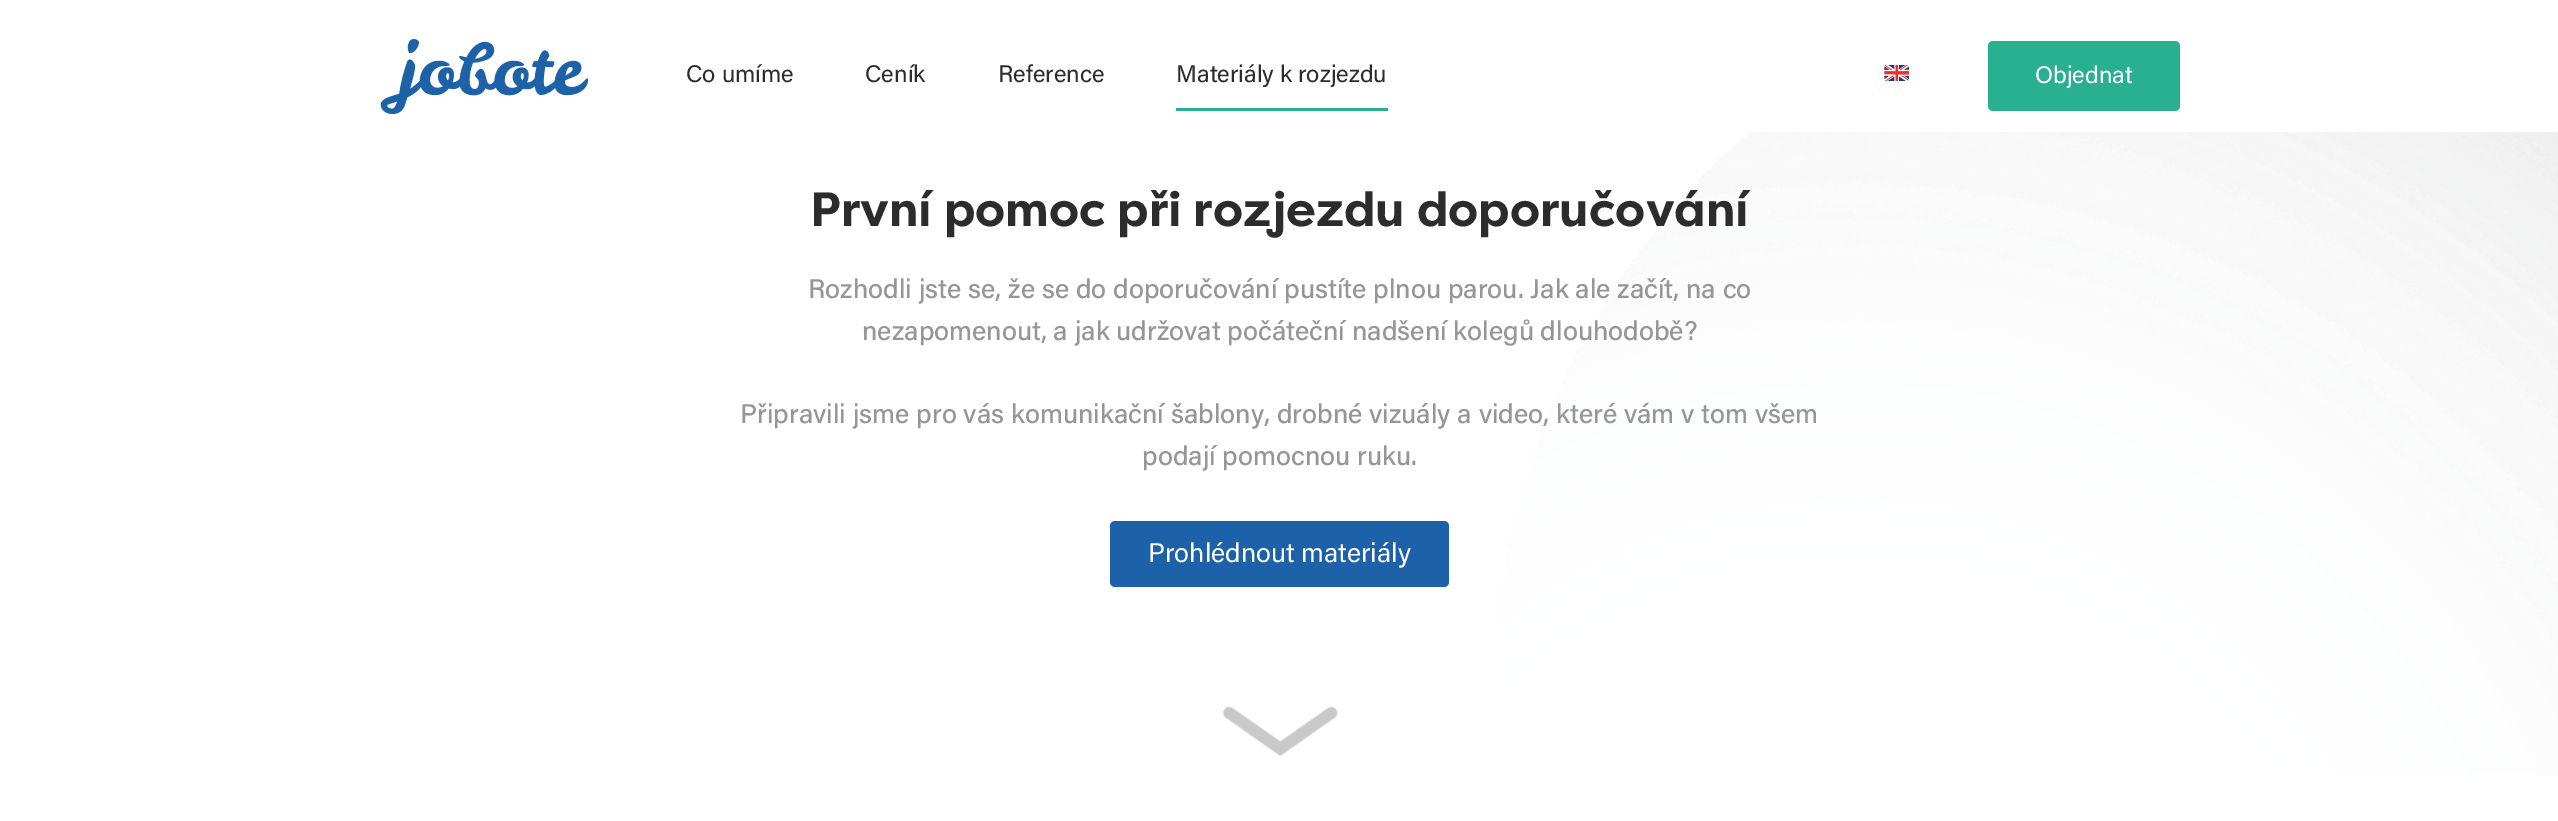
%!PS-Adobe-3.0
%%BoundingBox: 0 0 2558 821
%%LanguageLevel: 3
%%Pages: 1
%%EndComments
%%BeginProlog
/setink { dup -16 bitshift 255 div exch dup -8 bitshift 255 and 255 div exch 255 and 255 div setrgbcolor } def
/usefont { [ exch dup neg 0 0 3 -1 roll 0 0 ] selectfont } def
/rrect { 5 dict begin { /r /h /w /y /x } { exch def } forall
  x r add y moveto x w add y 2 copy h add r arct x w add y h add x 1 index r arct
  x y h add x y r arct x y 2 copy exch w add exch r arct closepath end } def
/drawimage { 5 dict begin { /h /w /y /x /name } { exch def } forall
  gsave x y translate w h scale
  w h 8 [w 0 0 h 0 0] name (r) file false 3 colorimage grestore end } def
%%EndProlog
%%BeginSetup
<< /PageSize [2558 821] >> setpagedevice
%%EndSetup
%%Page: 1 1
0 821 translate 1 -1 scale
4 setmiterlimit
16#FFFFFF setink
0 0 2558 821 rectfill
(img1.raw) 380 39 209 75 drawimage
/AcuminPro-Regular 24 usefont
16#2C2C2C setink
[
    [(Co umíme) 686 82]
    [(Ceník) 865 82]
    [(Reference) 998 82]
    [(Materiály k rozjezdu) 1176 82]
] { aload pop moveto show } forall
16#28B091 setink
1176 108 212 3 rectfill
(img2.raw) 1884 65 25 16 drawimage
1988 41 192 70 5 rrect fill
16#FFFFFF setink
2035 83 moveto (Objednat) show
(img3.raw) 1502 132 1056 643 drawimage
/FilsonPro-Bold 48 usefont
16#2C2C2C setink
810 226 moveto (První pomoc při rozjezdu doporučování) show
/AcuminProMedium-Medium 27 usefont
16#969696 setink
[
    [(Rozhodli jste se, že se do doporučování pustíte plnou parou. Jak ale začít, na co) 808 298]
    [(nezapomenout, a jak udržovat počáteční nadšení kolegů dlouhodobě?) 862 340]
    [(Připravili jsme pro vás komunikační šablony, drobné vizuály a video, které vám v tom všem) 740 423]
    [(podají pomocnou ruku.) 1142 465]
] { aload pop moveto show } forall
16#1D62A9 setink
1110 521 339 66 5 rrect fill
/AcuminPro-Regular 27 usefont
16#FFFFFF setink
1148 562 moveto (Prohlédnout materiály) show
(img4.raw) 1222 706 116 50 drawimage
showpage
%%EOF
